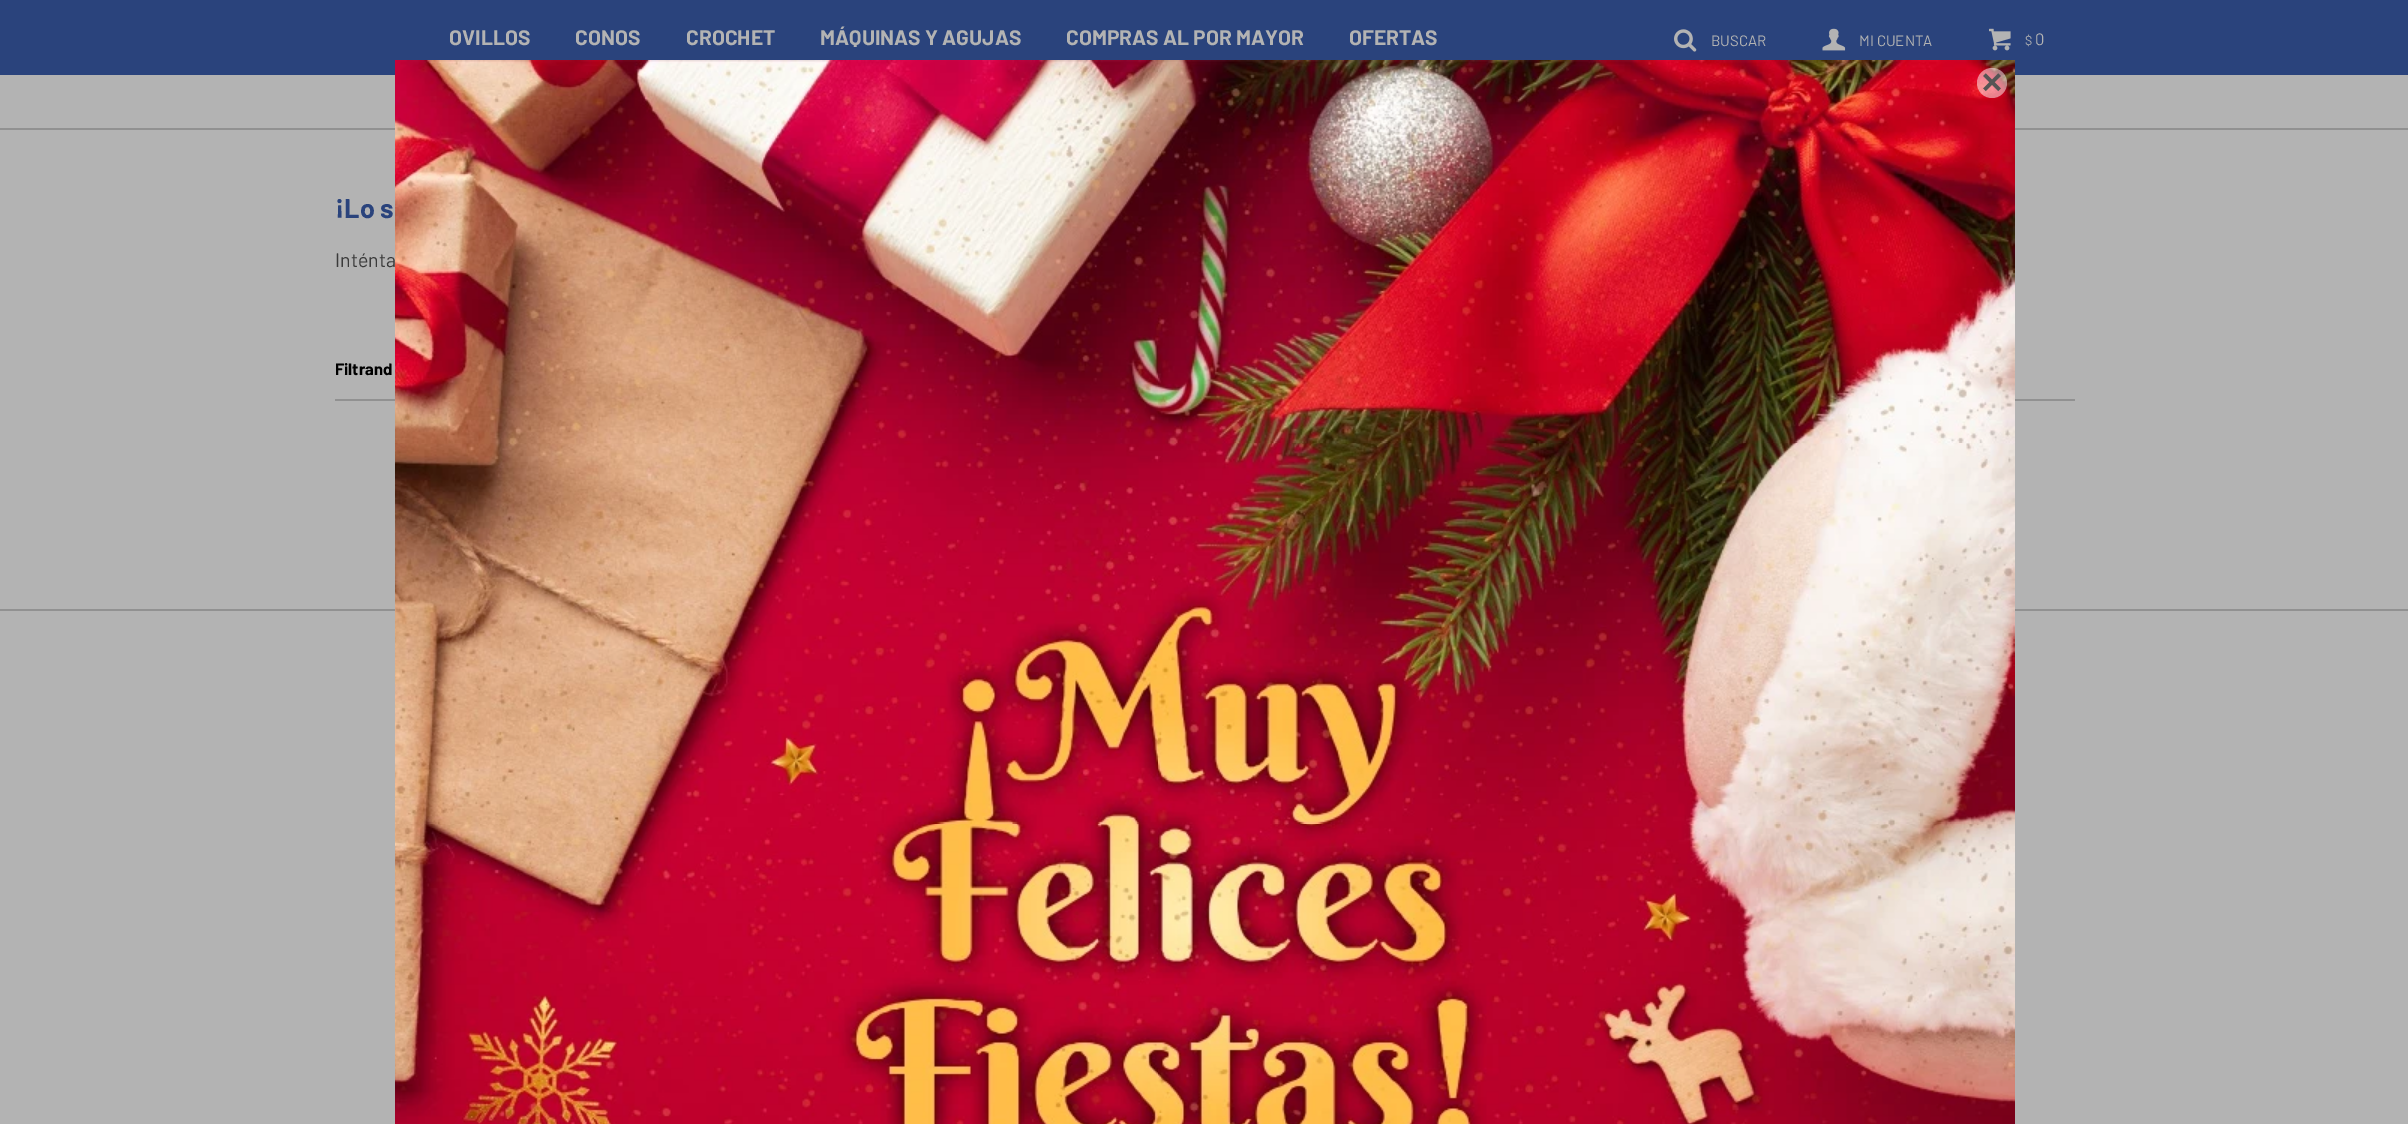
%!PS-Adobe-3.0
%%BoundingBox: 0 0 2408 1124
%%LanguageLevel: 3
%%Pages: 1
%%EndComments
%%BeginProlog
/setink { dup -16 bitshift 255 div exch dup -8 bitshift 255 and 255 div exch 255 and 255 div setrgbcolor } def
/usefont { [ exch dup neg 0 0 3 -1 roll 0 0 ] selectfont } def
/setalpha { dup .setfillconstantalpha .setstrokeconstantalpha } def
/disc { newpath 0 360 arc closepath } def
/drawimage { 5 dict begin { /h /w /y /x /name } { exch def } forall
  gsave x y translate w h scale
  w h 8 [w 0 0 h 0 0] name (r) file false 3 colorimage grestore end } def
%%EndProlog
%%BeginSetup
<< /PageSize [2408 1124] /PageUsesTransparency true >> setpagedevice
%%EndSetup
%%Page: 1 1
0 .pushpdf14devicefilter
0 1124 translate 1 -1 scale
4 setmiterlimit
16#B3B3B3 setink
0 0 2408 1124 rectfill
16#2A437C setink
0 0 2408 75 rectfill
/Barlow-Bold 21 usefont
16#B3B3B3 setink
[
    [(OVILLOS) 449 45]
    [(CONOS) 575 45]
    [(CROCHET) 686 45]
    [(MÁQUINAS Y AGUJAS) 820 45]
    [(COMPRAS AL POR MAYOR) 1066 45]
    [(OFERTAS) 1349 45]
] { aload pop moveto show } forall
(img1.raw) 1674 29 23 23 drawimage
/Barlow-Regular 15 usefont
1711 46 moveto (BUSCAR) show
(img2.raw) 1822 28 24 23 drawimage
1859 46 moveto (MI CUENTA) show
(img3.raw) 1989 28 22 23 drawimage
/Barlow-Regular 13 usefont
2025 45 moveto ($) show
/Barlow-Regular 16.5 usefont
2035 45 moveto (0) show
16#919191 setink
0 128 2408 2 rectfill
/Barlow-Bold 27 usefont
16#2A437C setink
335 218 moveto (¡Lo s) show
/Barlow-Regular 19.5 usefont
16#3B3B3B setink
335 267 moveto (Inténta) show
16#919191 setink
335 399 1740 2 rectfill
/Barlow-Bold 16.5 usefont
16#000000 setink
335 375 moveto (Filtrand) show
16#919191 setink
0 609 2408 2 rectfill
(img4.raw) 395 60 1620 1064 drawimage
0.5 setalpha
16#FFFFFF setink
1992 83 15 disc fill
1 setalpha
(img5.raw) 1983 73 18 19 drawimage
.poppdf14devicefilter showpage
%%EOF
